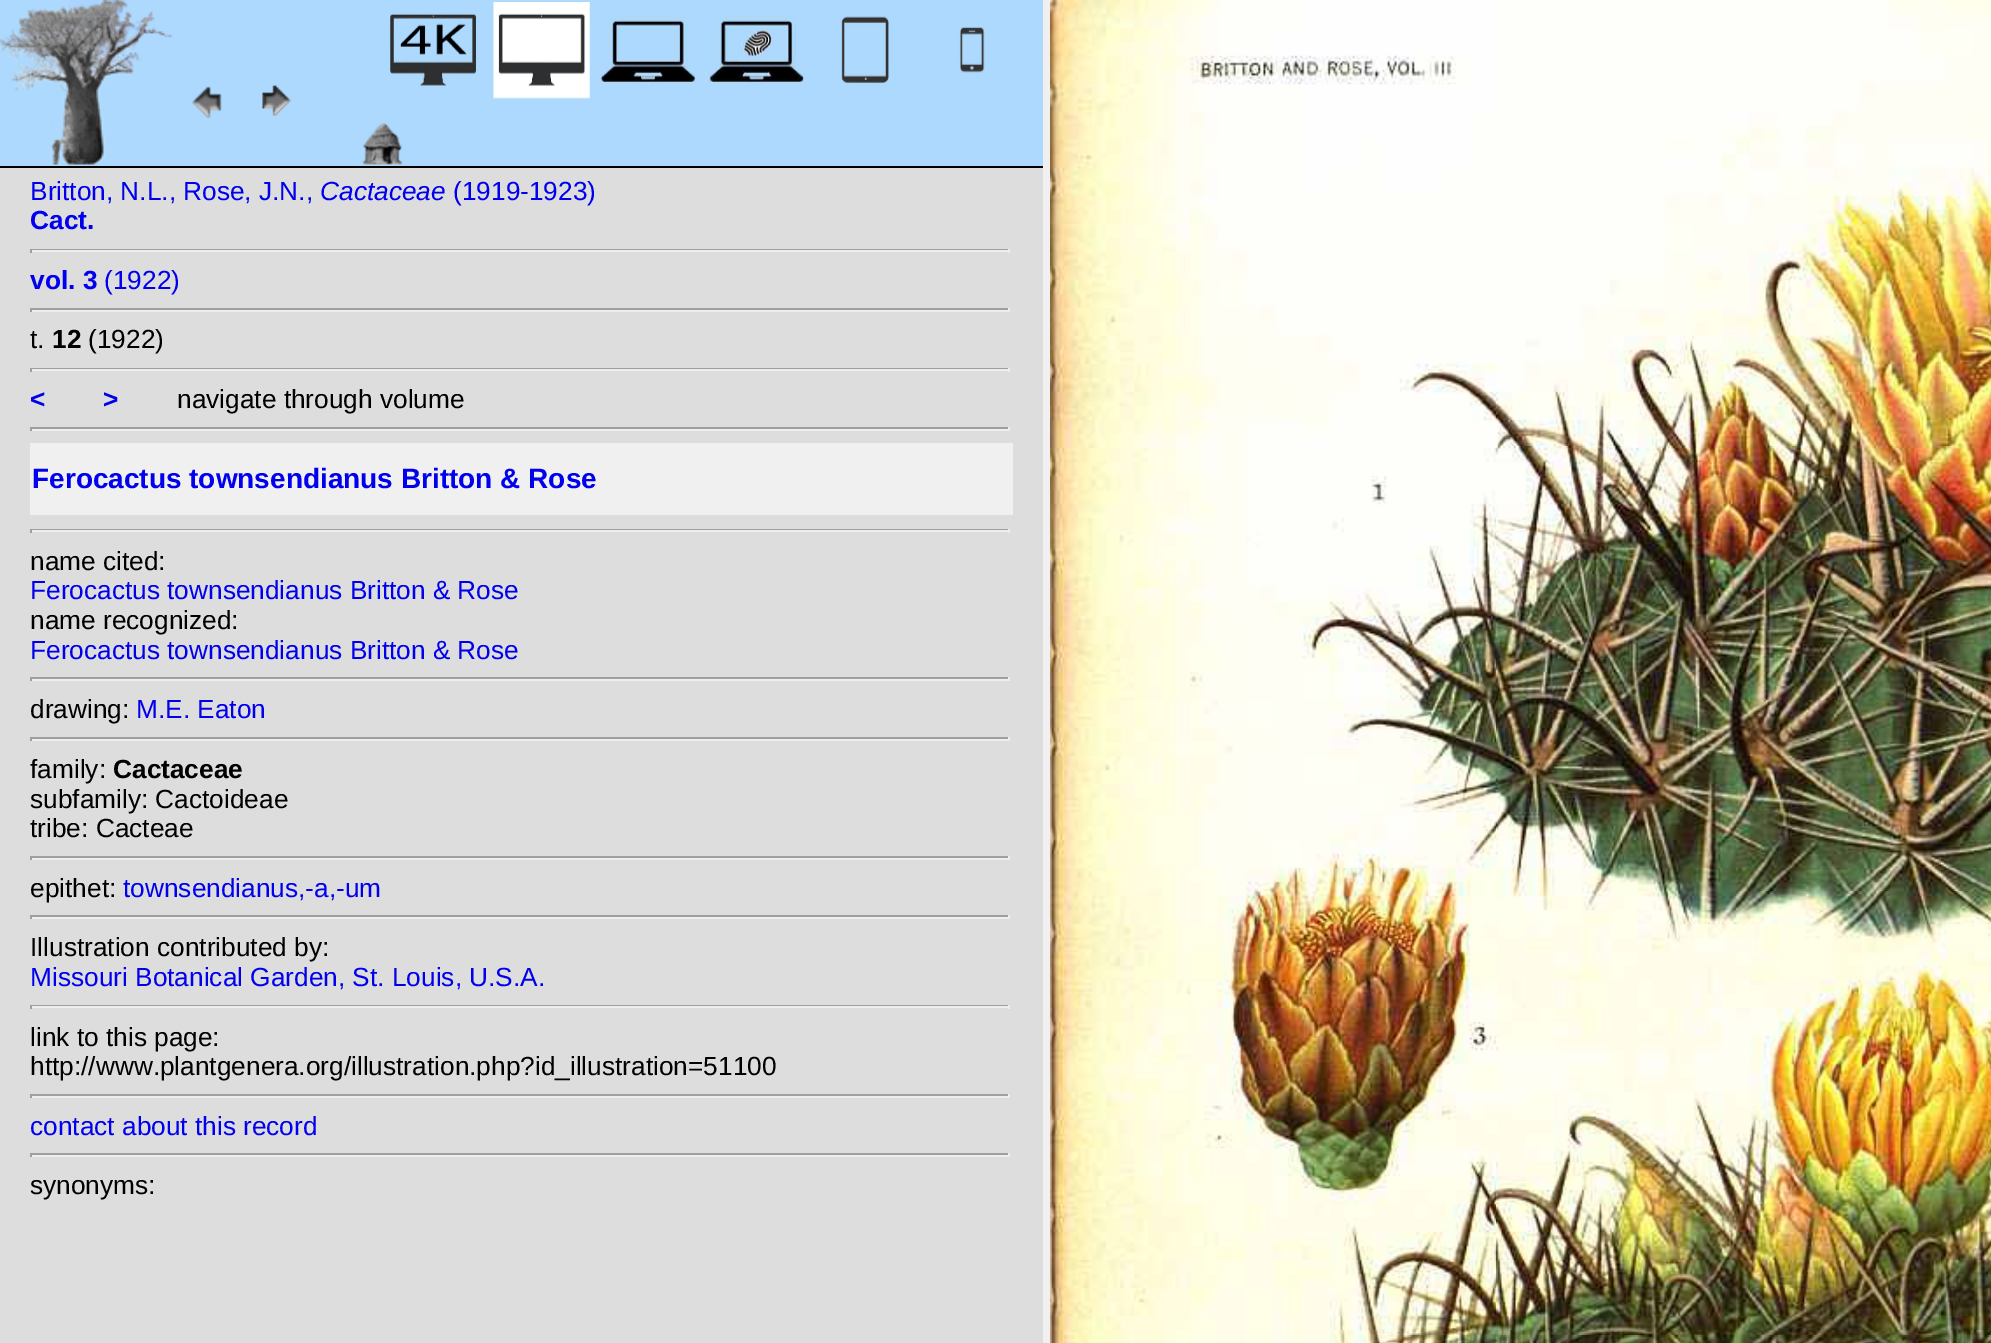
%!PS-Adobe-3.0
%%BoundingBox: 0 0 1991 1343
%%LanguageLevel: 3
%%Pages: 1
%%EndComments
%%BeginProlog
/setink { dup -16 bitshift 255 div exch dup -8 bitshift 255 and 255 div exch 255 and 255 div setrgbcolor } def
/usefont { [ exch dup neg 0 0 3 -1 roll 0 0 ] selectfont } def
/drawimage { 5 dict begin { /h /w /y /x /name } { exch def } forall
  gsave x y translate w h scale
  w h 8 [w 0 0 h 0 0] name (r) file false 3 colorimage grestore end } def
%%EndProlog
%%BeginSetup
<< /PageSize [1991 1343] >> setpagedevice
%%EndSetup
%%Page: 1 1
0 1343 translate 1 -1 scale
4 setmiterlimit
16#F0F0F0 setink
0 0 1991 1343 rectfill
[
    [0 168 1043 1175 16#DDDDDD]
    [0 0 1043 166 16#ADD9FE]
    [0 166 1043 2 16#000000]
] { aload pop setink rectfill } forall
(img1.raw) 0 0 175 165 drawimage
(img2.raw) 191 86 31 33 drawimage
(img3.raw) 262 85 29 31 drawimage
(img4.raw) 388 13 89 74 drawimage
(img5.raw) 493 2 97 97 drawimage
(img6.raw) 600 16 97 67 drawimage
(img7.raw) 708 16 97 67 drawimage
(img8.raw) 841 16 48 68 drawimage
(img9.raw) 958 27 27 46 drawimage
(img10.raw) 362 123 41 42 drawimage
/LiberationSans-Regular 26.25 usefont
16#0000EE setink
30 200 moveto (Britton, N.L., Rose, J.N.,) show
/LiberationSans-Italic 26.25 usefont
320 200 moveto (Cactaceae) show
/LiberationSans-Regular 26.25 usefont
453 200 moveto (\(1919-1923\)) show
/LiberationSans-Bold 26.25 usefont
30 229 moveto (Cact.) show
[
    [30 249 980 1 16#9F9F9F]
    [1008 249 2 4 16#EEEEEE]
    [30 250 980 2 16#EEEEEE]
    [30 249 2 4 16#9F9F9F]
] { aload pop setink rectfill } forall
16#0000EE setink
30 289 moveto (vol. 3) show
/LiberationSans-Regular 26.25 usefont
104 289 moveto (\(1922\)) show
[
    [30 308 980 2 16#9F9F9F]
    [1008 308 2 4 16#EEEEEE]
    [30 310 980 2 16#EEEEEE]
    [30 308 2 4 16#9F9F9F]
] { aload pop setink rectfill } forall
16#000000 setink
30 348 moveto (t.) show
/LiberationSans-Bold 26.25 usefont
52 348 moveto (12) show
/LiberationSans-Regular 26.25 usefont
88 348 moveto (\(1922\)) show
[
    [30 368 980 1 16#9F9F9F]
    [1008 368 2 4 16#EEEEEE]
    [30 369 980 2 16#EEEEEE]
    [30 368 2 4 16#9F9F9F]
] { aload pop setink rectfill } forall
/LiberationSans-Bold 26.25 usefont
16#0000EE setink
30 408 moveto (<) show
103 408 moveto (>) show
/LiberationSans-Regular 26.25 usefont
16#000000 setink
177 408 moveto (navigate through volume) show
[
    [30 427 980 2 16#9F9F9F]
    [1008 427 2 4 16#EEEEEE]
    [30 429 980 2 16#EEEEEE]
    [30 427 2 4 16#9F9F9F]
    [30 443 983 72 16#F0F0F0]
] { aload pop setink rectfill } forall
/LiberationSans-Bold 28 usefont
16#0000EE setink
32 488 moveto (Ferocactus townsendianus Britton & Rose) show
[
    [30 529 980 1 16#9F9F9F]
    [1008 529 2 4 16#EEEEEE]
    [30 530 980 2 16#EEEEEE]
    [30 529 2 4 16#9F9F9F]
] { aload pop setink rectfill } forall
/LiberationSans-Regular 26.25 usefont
16#000000 setink
30 570 moveto (name cited:) show
16#0000EE setink
30 599 moveto (Ferocactus townsendianus Britton & Rose) show
16#000000 setink
30 629 moveto (name recognized:) show
16#0000EE setink
30 659 moveto (Ferocactus townsendianus Britton & Rose) show
[
    [30 677 980 2 16#9F9F9F]
    [1008 677 2 4 16#EEEEEE]
    [30 679 980 2 16#EEEEEE]
    [30 677 2 4 16#9F9F9F]
] { aload pop setink rectfill } forall
16#000000 setink
30 718 moveto (drawing:) show
16#0000EE setink
136 718 moveto (M.E. Eaton) show
[
    [30 737 980 2 16#9F9F9F]
    [1008 737 2 4 16#EEEEEE]
    [30 739 980 2 16#EEEEEE]
    [30 737 2 4 16#9F9F9F]
] { aload pop setink rectfill } forall
16#000000 setink
30 778 moveto (family:) show
/LiberationSans-Bold 26.25 usefont
113 778 moveto (Cactaceae) show
/LiberationSans-Regular 26.25 usefont
30 808 moveto (subfamily: Cactoideae) show
30 837 moveto (tribe: Cacteae) show
[
    [30 856 980 2 16#9F9F9F]
    [1008 856 2 4 16#EEEEEE]
    [30 858 980 2 16#EEEEEE]
    [30 856 2 4 16#9F9F9F]
] { aload pop setink rectfill } forall
16#000000 setink
30 897 moveto (epithet:) show
16#0000EE setink
123 897 moveto (townsendianus,-a,-um) show
[
    [30 915 980 2 16#9F9F9F]
    [1008 915 2 4 16#EEEEEE]
    [30 917 980 2 16#EEEEEE]
    [30 915 2 4 16#9F9F9F]
] { aload pop setink rectfill } forall
16#000000 setink
30 956 moveto (Illustration contributed by:) show
16#0000EE setink
30 986 moveto (Missouri Botanical Garden, St. Louis, U.S.A.) show
[
    [30 1005 980 1 16#9F9F9F]
    [1008 1005 2 4 16#EEEEEE]
    [30 1006 980 2 16#EEEEEE]
    [30 1005 2 4 16#9F9F9F]
] { aload pop setink rectfill } forall
16#000000 setink
30 1046 moveto (link to this page:) show
30 1075 moveto (http://www.plantgenera.org/illustration.php?id_illustration=51100) show
[
    [30 1094 980 2 16#9F9F9F]
    [1008 1094 2 4 16#EEEEEE]
    [30 1096 980 2 16#EEEEEE]
    [30 1094 2 4 16#9F9F9F]
] { aload pop setink rectfill } forall
16#0000EE setink
30 1135 moveto (contact about this record) show
[
    [30 1153 980 2 16#9F9F9F]
    [1008 1153 2 4 16#EEEEEE]
    [30 1155 980 2 16#EEEEEE]
    [30 1153 2 4 16#9F9F9F]
] { aload pop setink rectfill } forall
16#000000 setink
30 1194 moveto (synonyms:) show
(img11.raw) 1050 0 941 1343 drawimage
showpage
%%EOF
